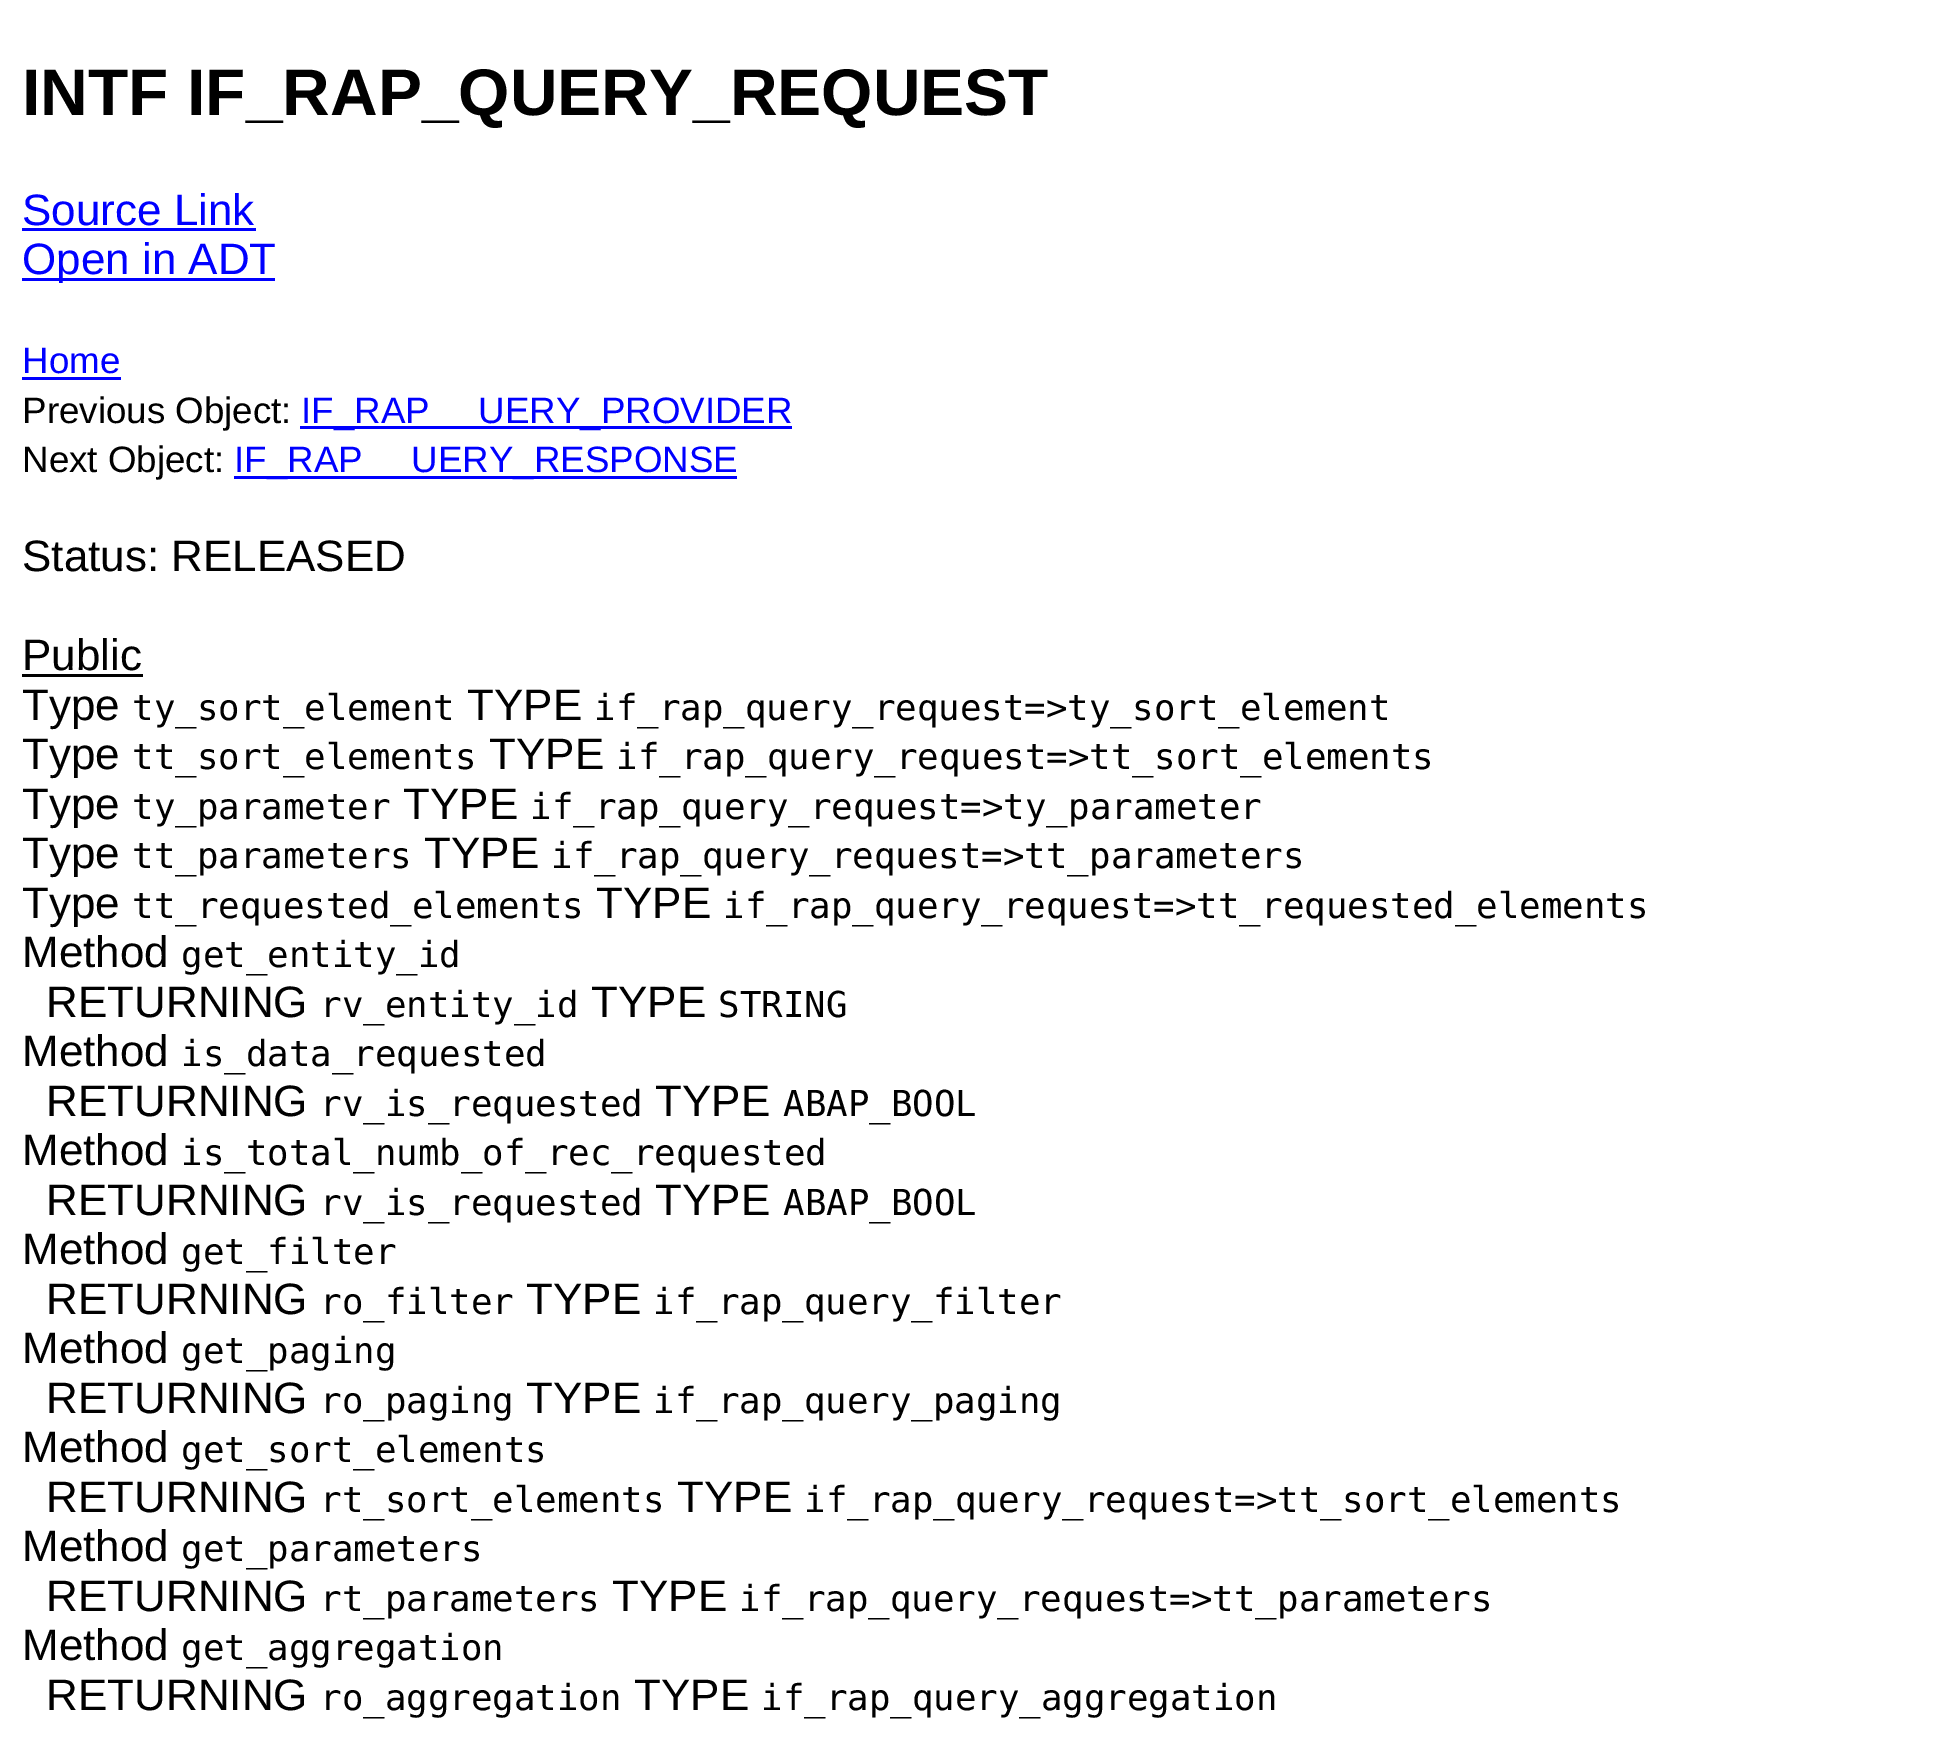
%!PS-Adobe-3.0
%%BoundingBox: 0 0 1943 1744
%%LanguageLevel: 3
%%Pages: 1
%%EndComments
%%BeginProlog
/setink { dup -16 bitshift 255 div exch dup -8 bitshift 255 and 255 div exch 255 and 255 div setrgbcolor } def
/usefont { [ exch dup neg 0 0 3 -1 roll 0 0 ] selectfont } def
%%EndProlog
%%BeginSetup
<< /PageSize [1943 1744] >> setpagedevice
%%EndSetup
%%Page: 1 1
0 1744 translate 1 -1 scale
4 setmiterlimit
16#FFFFFF setink
0 0 1943 1744 rectfill
/LiberationSans-Bold 66 usefont
16#000000 setink
22 115 moveto (INTF IF_RAP_QUERY_REQUEST) show
/LiberationSans-Regular 44 usefont
16#0000FF setink
22 225 moveto (Source Link) show
22 228 234 3 rectfill
22 278 253 3 rectfill
22 274 moveto (Open in ADT) show
/LiberationSans-Regular 36.75 usefont
22 373 moveto (Home) show
22 377 99 3 rectfill
16#000000 setink
22 423 moveto (Previous Object:) show
16#0000FF setink
300 426 492 3 rectfill
301 423 moveto (IF_RAP) show
478 423 moveto (UERY_PROVIDER) show
16#000000 setink
22 472 moveto (Next Object:) show
16#0000FF setink
234 476 503 3 rectfill
234 472 moveto (IF_RAP) show
411 472 moveto (UERY_RESPONSE) show
/LiberationSans-Regular 44 usefont
16#000000 setink
22 571 moveto (Status: RELEASED) show
22 670 moveto (Public) show
22 674 121 3 rectfill
22 720 moveto (Type) show
/DejaVuSansMono-Regular 35.75 usefont
132 720 moveto (ty_sort_element) show
/LiberationSans-Regular 44 usefont
467 720 moveto (TYPE) show
/DejaVuSansMono-Regular 35.75 usefont
594 720 moveto (if_rap_query_request=>ty_sort_element) show
/LiberationSans-Regular 44 usefont
22 769 moveto (Type) show
/DejaVuSansMono-Regular 35.75 usefont
132 769 moveto (tt_sort_elements) show
/LiberationSans-Regular 44 usefont
489 769 moveto (TYPE) show
/DejaVuSansMono-Regular 35.75 usefont
616 769 moveto (if_rap_query_request=>tt_sort_elements) show
/LiberationSans-Regular 44 usefont
22 819 moveto (Type) show
/DejaVuSansMono-Regular 35.75 usefont
132 819 moveto (ty_parameter) show
/LiberationSans-Regular 44 usefont
403 819 moveto (TYPE) show
/DejaVuSansMono-Regular 35.75 usefont
530 819 moveto (if_rap_query_request=>ty_parameter) show
/LiberationSans-Regular 44 usefont
22 868 moveto (Type) show
/DejaVuSansMono-Regular 35.75 usefont
132 868 moveto (tt_parameters) show
/LiberationSans-Regular 44 usefont
424 868 moveto (TYPE) show
/DejaVuSansMono-Regular 35.75 usefont
551 868 moveto (if_rap_query_request=>tt_parameters) show
/LiberationSans-Regular 44 usefont
22 918 moveto (Type) show
/DejaVuSansMono-Regular 35.75 usefont
132 918 moveto (tt_requested_elements) show
/LiberationSans-Regular 44 usefont
596 918 moveto (TYPE) show
/DejaVuSansMono-Regular 35.75 usefont
723 918 moveto (if_rap_query_request=>tt_requested_elements) show
/LiberationSans-Regular 44 usefont
22 967 moveto (Method) show
/DejaVuSansMono-Regular 35.75 usefont
181 967 moveto (get_entity_id) show
/LiberationSans-Regular 44 usefont
46 1017 moveto (RETURNING) show
/DejaVuSansMono-Regular 35.75 usefont
320 1017 moveto (rv_entity_id) show
/LiberationSans-Regular 44 usefont
591 1017 moveto (TYPE) show
/DejaVuSansMono-Regular 35.75 usefont
718 1017 moveto (STRING) show
/LiberationSans-Regular 44 usefont
22 1066 moveto (Method) show
/DejaVuSansMono-Regular 35.75 usefont
181 1066 moveto (is_data_requested) show
/LiberationSans-Regular 44 usefont
46 1116 moveto (RETURNING) show
/DejaVuSansMono-Regular 35.75 usefont
320 1116 moveto (rv_is_requested) show
/LiberationSans-Regular 44 usefont
655 1116 moveto (TYPE) show
/DejaVuSansMono-Regular 35.75 usefont
783 1116 moveto (ABAP_BOOL) show
/LiberationSans-Regular 44 usefont
22 1165 moveto (Method) show
/DejaVuSansMono-Regular 35.75 usefont
181 1165 moveto (is_total_numb_of_rec_requested) show
/LiberationSans-Regular 44 usefont
46 1215 moveto (RETURNING) show
/DejaVuSansMono-Regular 35.75 usefont
320 1215 moveto (rv_is_requested) show
/LiberationSans-Regular 44 usefont
655 1215 moveto (TYPE) show
/DejaVuSansMono-Regular 35.75 usefont
783 1215 moveto (ABAP_BOOL) show
/LiberationSans-Regular 44 usefont
22 1264 moveto (Method) show
/DejaVuSansMono-Regular 35.75 usefont
181 1264 moveto (get_filter) show
/LiberationSans-Regular 44 usefont
46 1314 moveto (RETURNING) show
/DejaVuSansMono-Regular 35.75 usefont
320 1314 moveto (ro_filter) show
/LiberationSans-Regular 44 usefont
526 1314 moveto (TYPE) show
/DejaVuSansMono-Regular 35.75 usefont
653 1314 moveto (if_rap_query_filter) show
/LiberationSans-Regular 44 usefont
22 1363 moveto (Method) show
/DejaVuSansMono-Regular 35.75 usefont
181 1363 moveto (get_paging) show
/LiberationSans-Regular 44 usefont
46 1413 moveto (RETURNING) show
/DejaVuSansMono-Regular 35.75 usefont
320 1413 moveto (ro_paging) show
/LiberationSans-Regular 44 usefont
526 1413 moveto (TYPE) show
/DejaVuSansMono-Regular 35.75 usefont
653 1413 moveto (if_rap_query_paging) show
/LiberationSans-Regular 44 usefont
22 1462 moveto (Method) show
/DejaVuSansMono-Regular 35.75 usefont
181 1462 moveto (get_sort_elements) show
/LiberationSans-Regular 44 usefont
46 1512 moveto (RETURNING) show
/DejaVuSansMono-Regular 35.75 usefont
320 1512 moveto (rt_sort_elements) show
/LiberationSans-Regular 44 usefont
677 1512 moveto (TYPE) show
/DejaVuSansMono-Regular 35.75 usefont
804 1512 moveto (if_rap_query_request=>tt_sort_elements) show
/LiberationSans-Regular 44 usefont
22 1561 moveto (Method) show
/DejaVuSansMono-Regular 35.75 usefont
181 1561 moveto (get_parameters) show
/LiberationSans-Regular 44 usefont
46 1611 moveto (RETURNING) show
/DejaVuSansMono-Regular 35.75 usefont
320 1611 moveto (rt_parameters) show
/LiberationSans-Regular 44 usefont
612 1611 moveto (TYPE) show
/DejaVuSansMono-Regular 35.75 usefont
739 1611 moveto (if_rap_query_request=>tt_parameters) show
/LiberationSans-Regular 44 usefont
22 1660 moveto (Method) show
/DejaVuSansMono-Regular 35.75 usefont
181 1660 moveto (get_aggregation) show
/LiberationSans-Regular 44 usefont
46 1710 moveto (RETURNING) show
/DejaVuSansMono-Regular 35.75 usefont
320 1710 moveto (ro_aggregation) show
/LiberationSans-Regular 44 usefont
634 1710 moveto (TYPE) show
/DejaVuSansMono-Regular 35.75 usefont
761 1710 moveto (if_rap_query_aggregation) show
showpage
%%EOF
